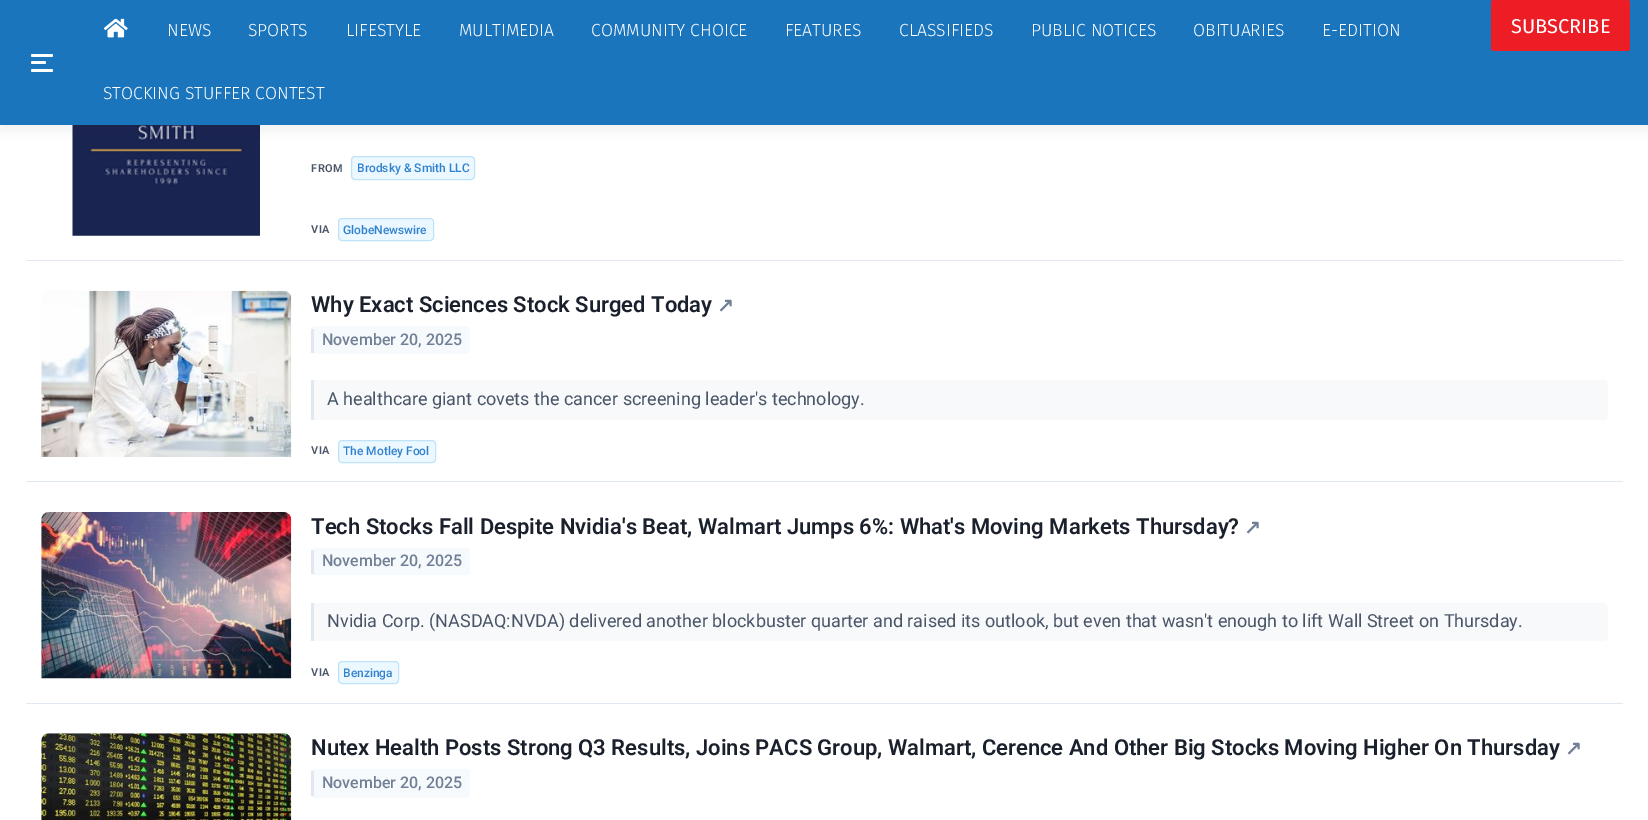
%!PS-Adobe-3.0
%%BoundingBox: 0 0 1648 820
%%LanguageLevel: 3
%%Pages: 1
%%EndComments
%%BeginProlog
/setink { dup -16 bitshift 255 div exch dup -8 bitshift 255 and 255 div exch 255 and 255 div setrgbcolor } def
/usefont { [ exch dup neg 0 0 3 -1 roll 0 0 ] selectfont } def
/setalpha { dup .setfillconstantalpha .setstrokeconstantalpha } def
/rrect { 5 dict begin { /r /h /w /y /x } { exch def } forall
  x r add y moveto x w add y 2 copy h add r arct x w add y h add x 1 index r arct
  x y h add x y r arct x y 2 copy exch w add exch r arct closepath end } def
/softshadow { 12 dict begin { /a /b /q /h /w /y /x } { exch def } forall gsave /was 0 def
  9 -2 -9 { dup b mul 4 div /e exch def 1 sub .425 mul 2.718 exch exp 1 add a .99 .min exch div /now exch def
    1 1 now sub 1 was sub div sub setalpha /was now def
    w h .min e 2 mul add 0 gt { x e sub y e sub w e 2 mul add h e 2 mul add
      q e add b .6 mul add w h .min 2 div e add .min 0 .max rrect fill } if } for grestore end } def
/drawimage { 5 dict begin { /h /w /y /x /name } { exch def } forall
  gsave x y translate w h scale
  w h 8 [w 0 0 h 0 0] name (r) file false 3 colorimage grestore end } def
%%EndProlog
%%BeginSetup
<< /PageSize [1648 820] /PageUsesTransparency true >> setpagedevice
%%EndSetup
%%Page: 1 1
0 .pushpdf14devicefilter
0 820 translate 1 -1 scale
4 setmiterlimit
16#FFFFFF setink
0 0 1648 820 rectfill
(img2.raw) 72 125 188 111 drawimage
16#000000 setink
0 6 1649 125 0 6 0.05 softshadow
16#1B75BC setink
0 0 1648 125 rectfill
16#FFFFFF setink
31 54 22 3 1.5 rrect fill
31 61 15 3 1.5 rrect fill
31 69 22 3 1.5 rrect fill
(img1.raw) 103 18 25 20 drawimage
/FiraSans-Light 17.5 usefont
[
    [(NEWS) 167 36]
    [(SPORTS) 248 36]
    [(LIFESTYLE) 346 36]
    [(MULTIMEDIA) 459 36]
    [(COMMUNITY CHOICE) 591 36]
    [(FEATURES) 785 36]
    [(CLASSIFIEDS) 899 36]
    [(PUBLIC NOTICES) 1031 36]
    [(OBITUARIES) 1193 36]
    [(E-EDITION) 1322 36]
    [(STOCKING STUFFER CONTEST) 103 99]
] { aload pop moveto show } forall
16#EC1D24 setink
1491 0 139 51 2.5 rrect fill
/FiraSans-Regular 20 usefont
16#FFFFFF setink
1511 33 moveto (SUBSCRIBE) show
16#E2E8F0 setink
26 260 1597 1 rectfill
/Roboto-SemiBold 11 usefont
16#4A5568 setink
311 172 moveto 0.5 0 (FROM) ashow
16#EBF8FF setink
351.5 156.5 123 23 3.5 rrect gsave fill grestore
16#BEE3F8 setink
stroke
/Roboto-Medium 12 usefont
16#3182CE setink
357 172 moveto (Brodsky & Smith LLC) show
/Roboto-SemiBold 11 usefont
16#4A5568 setink
311 233 moveto 0.5 0 (VIA) ashow
16#EBF8FF setink
338.5 218.5 95 22 3.5 rrect gsave fill grestore
16#BEE3F8 setink
stroke
/Roboto-Medium 12 usefont
16#3182CE setink
343 234 moveto (GlobeNewswire) show
16#E2E8F0 setink
26 481 1597 1 rectfill
(img3.raw) 41 290 251 167 drawimage
/Roboto-SemiBold 22 usefont
16#1A202C setink
311 312 moveto (Why Exact Sciences Stock Surged Today) show
/DejaVuSans-Bold 20 usefont
16#718096 setink
717 312 moveto (↗) show
16#F7FAFC setink
311 326 159 28 4 rrect fill
16#E2E8F0 setink
311 329 3 24 rectfill
/Roboto-Medium 16 usefont
16#718096 setink
322 345 moveto (November 20, 2025) show
16#F8F9FA setink
311 380 moveto 1603 380 lineto 1606 380 1608 382 1608 385 curveto 1608 415 lineto 1608 418 1606 420 1603 420 curveto 311 420 lineto closepath fill
16#E2E8F0 setink
311 380 3 40 rectfill
/Roboto-Regular 18 usefont
16#4A5568 setink
327 405 moveto (A healthcare giant covets the cancer screening leader's technology.) show
/Roboto-SemiBold 11 usefont
311 454 moveto 0.5 0 (VIA) ashow
16#EBF8FF setink
338.5 440.5 97 22 3.5 rrect gsave fill grestore
16#BEE3F8 setink
stroke
/Roboto-Medium 12 usefont
16#3182CE setink
343 455 moveto (The Motley Fool) show
16#E2E8F0 setink
26 703 1597 1 rectfill
(img4.raw) 41 512 251 167 drawimage
/Roboto-SemiBold 22 usefont
16#1A202C setink
311 534 moveto (Tech Stocks Fall Despite Nvidia's Beat, Walmart Jumps 6%: What's Moving Markets Thursday?) show
/DejaVuSans-Bold 20 usefont
16#718096 setink
1244 534 moveto (↗) show
16#F7FAFC setink
311 548 159 27 4 rrect fill
16#E2E8F0 setink
311 550 3 24 rectfill
/Roboto-Medium 16 usefont
16#718096 setink
322 566 moveto (November 20, 2025) show
16#F8F9FA setink
311 603 moveto 1603 603 lineto 1606 603 1608 605 1608 608 curveto 1608 636 lineto 1608 639 1606 641 1603 641 curveto 311 641 lineto closepath fill
16#E2E8F0 setink
311 603 3 38 rectfill
/Roboto-Regular 18 usefont
16#4A5568 setink
327 627 moveto (Nvidia Corp. \(NASDAQ:NVDA\) delivered another blockbuster quarter and raised its outlook, but even that wasn't enough to lift Wall Street on Thursday.) show
/Roboto-SemiBold 11 usefont
311 676 moveto 0.5 0 (VIA) ashow
16#EBF8FF setink
338.5 661.5 60 22 3.5 rrect gsave fill grestore
16#BEE3F8 setink
stroke
/Roboto-Medium 12 usefont
16#3182CE setink
343 677 moveto (Benzinga) show
(img5.raw) 41 733 251 87 drawimage
/Roboto-SemiBold 22 usefont
16#1A202C setink
311 755 moveto (Nutex Health Posts Strong Q3 Results, Joins PACS Group, Walmart, Cerence And Other Big Stocks Moving Higher On Thursday) show
/DejaVuSans-Bold 20 usefont
16#718096 setink
1565 755 moveto (↗) show
16#F7FAFC setink
311 769 159 29 4 rrect fill
16#E2E8F0 setink
311 771 3 25 rectfill
/Roboto-Medium 16 usefont
16#718096 setink
322 788 moveto (November 20, 2025) show
.poppdf14devicefilter showpage
%%EOF
